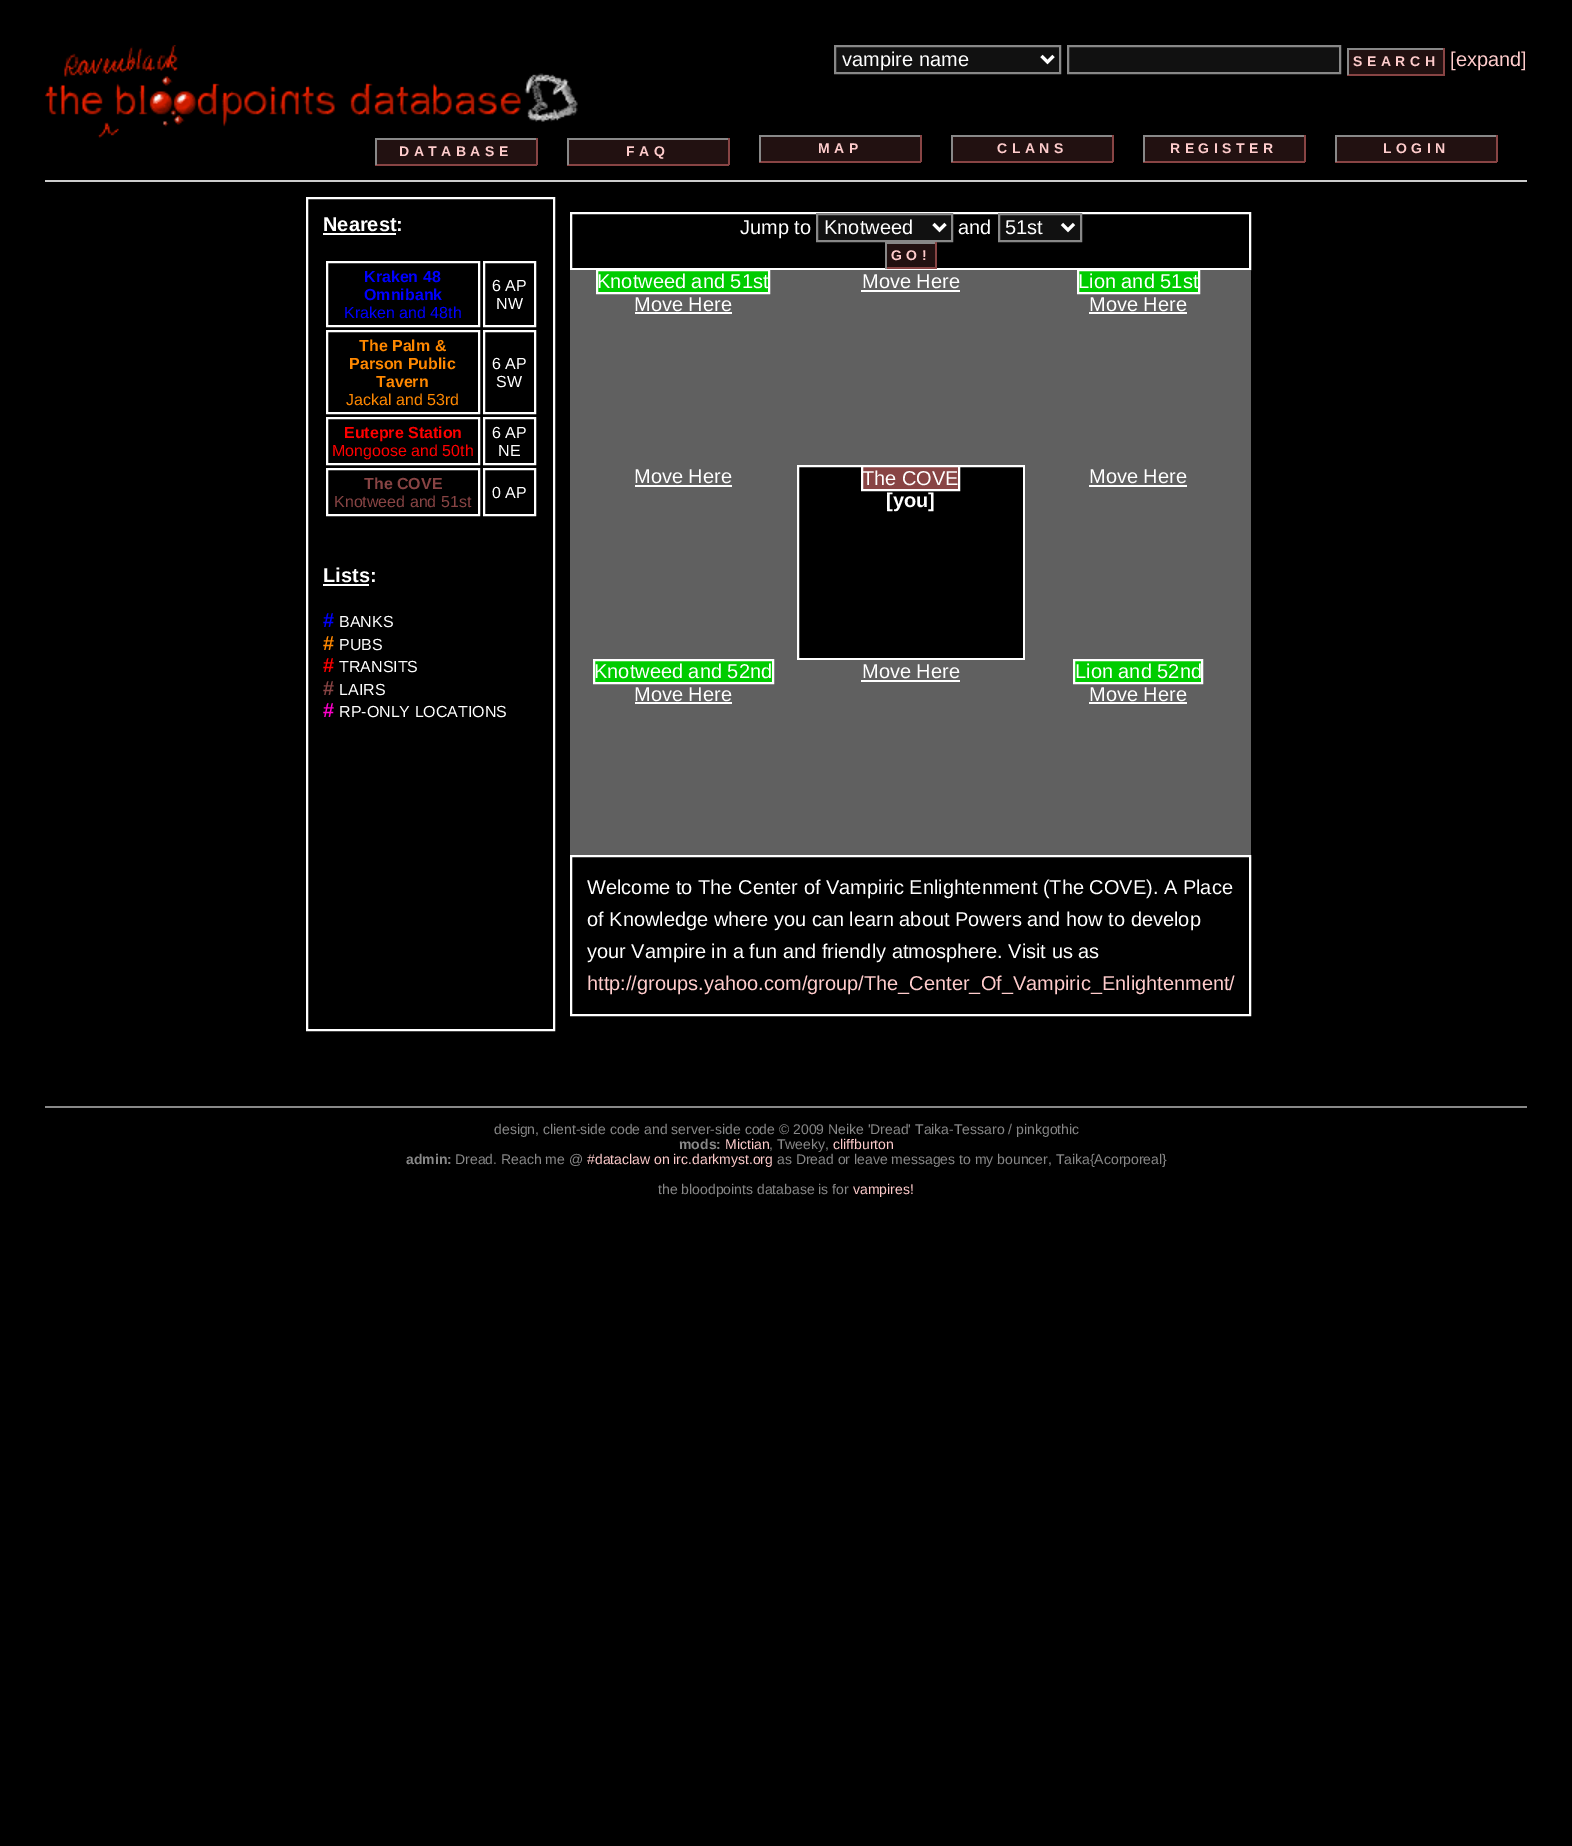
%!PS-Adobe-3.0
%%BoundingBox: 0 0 1572 1846
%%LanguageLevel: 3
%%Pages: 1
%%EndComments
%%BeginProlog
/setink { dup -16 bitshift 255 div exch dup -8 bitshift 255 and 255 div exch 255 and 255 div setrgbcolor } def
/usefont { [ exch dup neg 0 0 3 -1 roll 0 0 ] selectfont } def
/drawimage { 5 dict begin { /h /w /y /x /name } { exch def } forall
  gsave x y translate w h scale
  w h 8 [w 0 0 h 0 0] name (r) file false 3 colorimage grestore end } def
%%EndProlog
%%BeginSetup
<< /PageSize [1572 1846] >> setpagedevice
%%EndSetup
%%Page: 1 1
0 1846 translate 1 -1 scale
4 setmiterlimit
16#000000 setink
0 0 1572 1846 rectfill
(img1.raw) 45 45 533 93 drawimage
16#111111 setink
835 46 moveto 1060 46 lineto 1060 73 lineto 835 73 lineto closepath gsave fill grestore
16#888888 setink
2 setlinewidth
stroke
16#FFFFFF setink
3 setlinewidth
1041.5 56 moveto 1047.5 62 lineto 1053.5 56 lineto stroke
/LiberationSans-Regular 20 usefont
842 66 moveto (vampire name) show
16#111111 setink
1068 46 moveto 1340 46 lineto 1340 73 lineto 1068 73 lineto closepath gsave fill grestore
16#888888 setink
2 setlinewidth
stroke
[
    [1349 50 94 24 16#221111]
    [1347 48 98 2 16#888888]
    [1443 48 2 27 16#884444]
    [1347 74 98 2 16#884444]
    [1347 48 2 27 16#888888]
] { aload pop setink rectfill } forall
/LiberationSans-Bold 14 usefont
16#FFCCCC setink
1353 66 moveto 4.5 0 (SEARCH) ashow
/LiberationSans-Regular 20 usefont
1450 66 moveto ([expand]) show
[
    [45 180 1482 2 16#CCCCCC]
    [377 140 159 24 16#221111]
    [375 138 162 2 16#888888]
    [536 138 2 27 16#884444]
    [375 164 162 2 16#884444]
    [375 138 2 27 16#888888]
] { aload pop setink rectfill } forall
/LiberationSans-Bold 14 usefont
16#FFCCCC setink
399 156 moveto 4.5 0 (DATABASE) ashow
[
    [569 140 159 24 16#221111]
    [567 138 162 2 16#888888]
    [728 138 2 27 16#884444]
    [567 164 162 2 16#884444]
    [567 138 2 27 16#888888]
] { aload pop setink rectfill } forall
16#FFCCCC setink
626 156 moveto 4.5 0 (FAQ) ashow
[
    [761 137 159 24 16#221111]
    [759 135 162 2 16#888888]
    [920 135 2 27 16#884444]
    [759 161 162 2 16#884444]
    [759 135 2 27 16#888888]
] { aload pop setink rectfill } forall
16#FFCCCC setink
818 153 moveto 4.5 0 (MAP) ashow
[
    [953 137 159 24 16#221111]
    [951 135 162 2 16#888888]
    [1112 135 2 27 16#884444]
    [951 161 162 2 16#884444]
    [951 135 2 27 16#888888]
] { aload pop setink rectfill } forall
16#FFCCCC setink
997 153 moveto 4.5 0 (CLANS) ashow
[
    [1145 137 159 24 16#221111]
    [1143 135 162 2 16#888888]
    [1304 135 2 27 16#884444]
    [1143 161 162 2 16#884444]
    [1143 135 2 27 16#888888]
] { aload pop setink rectfill } forall
16#FFCCCC setink
1170 153 moveto 4.5 0 (REGISTER) ashow
[
    [1337 137 159 24 16#221111]
    [1335 135 162 2 16#888888]
    [1496 135 2 27 16#884444]
    [1335 161 162 2 16#884444]
    [1335 135 2 27 16#888888]
] { aload pop setink rectfill } forall
16#FFCCCC setink
1383 153 moveto 4.5 0 (LOGIN) ashow
16#FFFFFF setink
307 198 247 832 rectstroke
/LiberationSans-Bold 20 usefont
323 231 moveto (Nearest:) show
323 233 73 2 rectfill
327 262 152 64 rectstroke
/LiberationSans-Bold 16 usefont
16#0000FF setink
364 282 moveto (Kraken 48) show
364 300 moveto (Omnibank) show
/LiberationSans-Regular 16 usefont
344 318 moveto (Kraken and 48th) show
16#FFFFFF setink
484 262 51 64 rectstroke
492 291 moveto (6 AP) show
496 309 moveto (NW) show
327 331 152 82 rectstroke
/LiberationSans-Bold 16 usefont
16#FF8800 setink
[
    [(The Palm &) 359 351]
    [(Parson Public) 349 369]
    [(Tavern) 376 387]
] { aload pop moveto show } forall
/LiberationSans-Regular 16 usefont
346 405 moveto (Jackal and 53rd) show
16#FFFFFF setink
484 331 51 82 rectstroke
492 369 moveto (6 AP) show
496 387 moveto (SW) show
327 418 152 46 rectstroke
/LiberationSans-Bold 16 usefont
16#FF0000 setink
344 438 moveto (Eutepre Station) show
/LiberationSans-Regular 16 usefont
332 456 moveto (Mongoose and 50th) show
16#FFFFFF setink
484 418 51 46 rectstroke
492 438 moveto (6 AP) show
498 456 moveto (NE) show
327 469 152 46 rectstroke
/LiberationSans-Bold 16 usefont
16#884444 setink
364 489 moveto (The COVE) show
/LiberationSans-Regular 16 usefont
334 507 moveto (Knotweed and 51st) show
16#FFFFFF setink
484 469 51 46 rectstroke
492 498 moveto (0 AP) show
/LiberationSans-Bold 20 usefont
323 582 moveto (Lists:) show
323 584 46 2 rectfill
16#0000FF setink
323 627 moveto (#) show
/LiberationSans-Regular 16 usefont
16#FFFFFF setink
339 627 moveto (BANKS) show
/LiberationSans-Bold 20 usefont
16#FF8800 setink
323 650 moveto (#) show
/LiberationSans-Regular 16 usefont
16#FFFFFF setink
339 650 moveto (PUBS) show
/LiberationSans-Bold 20 usefont
16#FF0000 setink
323 672 moveto (#) show
/LiberationSans-Regular 16 usefont
16#FFFFFF setink
339 672 moveto (TRANSITS) show
/LiberationSans-Bold 20 usefont
16#884444 setink
323 695 moveto (#) show
/LiberationSans-Regular 16 usefont
16#FFFFFF setink
339 695 moveto (LAIRS) show
/LiberationSans-Bold 20 usefont
16#FF00CC setink
323 717 moveto (#) show
/LiberationSans-Regular 16 usefont
16#FFFFFF setink
339 717 moveto (RP-ONLY LOCATIONS) show
571 213 679 56 rectstroke
/LiberationSans-Regular 20 usefont
740 234 moveto (Jump to) show
16#111111 setink
817 214 moveto 952 214 lineto 952 241 lineto 817 241 lineto closepath gsave fill grestore
16#888888 setink
stroke
16#FFFFFF setink
3 setlinewidth
933.5 224 moveto 939.5 230 lineto 945.5 224 lineto stroke
824 234 moveto (Knotweed) show
958 234 moveto (and) show
16#111111 setink
999 214 moveto 1081 214 lineto 1081 241 lineto 999 241 lineto closepath gsave fill grestore
16#888888 setink
2 setlinewidth
stroke
16#FFFFFF setink
3 setlinewidth
1062 224 moveto 1068 230 lineto 1074 224 lineto stroke
1005 234 moveto (51st) show
[
    [887 244 48 23 16#221111]
    [885 242 51 2 16#888888]
    [935 242 2 27 16#884444]
    [885 267 51 2 16#884444]
    [885 242 2 27 16#888888]
] { aload pop setink rectfill } forall
/LiberationSans-Bold 14 usefont
16#FFCCCC setink
891 260 moveto 4.5 0 (GO!) ashow
16#606060 setink
570 270 681 195 rectfill
16#00CC00 setink
597 270 moveto 769 270 lineto 769 293 lineto 597 293 lineto closepath gsave fill grestore
16#FFFFFF setink
2 setlinewidth
stroke
/LiberationSans-Regular 20 usefont
597 288 moveto (Knotweed and 51st) show
634 311 moveto (Move Here) show
635 312 97 2 rectfill
862 288 moveto (Move Here) show
861 290 99 2 rectfill
16#00CC00 setink
1078 270 moveto 1199 270 lineto 1199 293 lineto 1078 293 lineto closepath gsave fill grestore
16#FFFFFF setink
stroke
1078 288 moveto (Lion and 51st) show
1089 311 moveto (Move Here) show
1089 312 98 2 rectfill
16#606060 setink
570 465 227 390 rectfill
16#FFFFFF setink
634 483 moveto (Move Here) show
635 485 97 2 rectfill
798 466 226 193 rectstroke
16#884444 setink
862 466 moveto 959 466 lineto 959 490 lineto 862 490 lineto closepath gsave fill grestore
16#FFFFFF setink
stroke
862 485 moveto (The COVE) show
/LiberationSans-Bold 20 usefont
886 507 moveto ([you]) show
16#606060 setink
1025 465 226 195 rectfill
/LiberationSans-Regular 20 usefont
16#FFFFFF setink
1089 483 moveto (Move Here) show
1089 485 98 2 rectfill
16#00CC00 setink
594 660 moveto 773 660 lineto 773 683 lineto 594 683 lineto closepath gsave fill grestore
16#FFFFFF setink
stroke
594 678 moveto (Knotweed and 52nd) show
634 701 moveto (Move Here) show
635 702 97 2 rectfill
16#606060 setink
797 660 454 195 rectfill
16#FFFFFF setink
862 678 moveto (Move Here) show
861 680 99 2 rectfill
16#00CC00 setink
1074 660 moveto 1202 660 lineto 1202 683 lineto 1074 683 lineto closepath gsave fill grestore
16#FFFFFF setink
stroke
1075 678 moveto (Lion and 52nd) show
1089 701 moveto (Move Here) show
1089 702 98 2 rectfill
571 856 679 159 rectstroke
[
    [(Welcome to The Center of Vampiric Enlightenment \(The COVE\). A Place) 587 894]
    [(of Knowledge where you can learn about Powers and how to develop) 587 926]
    [(your Vampire in a fun and friendly atmosphere. Visit us as) 587 958]
] { aload pop moveto show } forall
16#FFCCCC setink
587 990 moveto (http://groups.yahoo.com/group/The_Center_Of_Vampiric_Enlightenment/) show
16#888888 setink
45 1106 1482 2 rectfill
/LiberationSans-Regular 14 usefont
494 1134 moveto (design, client-side code and server-side code © 2009 Neike 'Dread' Taika-Tessaro / pinkgothic) show
/LiberationSans-Bold 14 usefont
679 1149 moveto (mods:) show
/LiberationSans-Regular 14 usefont
16#FFCCCC setink
725 1149 moveto (Mictian) show
16#888888 setink
769 1149 moveto (, Tweeky,) show
16#FFCCCC setink
833 1149 moveto (cliffburton) show
/LiberationSans-Bold 14 usefont
16#888888 setink
406 1164 moveto (admin:) show
/LiberationSans-Regular 14 usefont
455 1164 moveto (Dread. Reach me @) show
16#FFCCCC setink
587 1164 moveto (#dataclaw on irc.darkmyst.org) show
16#888888 setink
777 1164 moveto (as Dread or leave messages to my bouncer, Taika{Acorporeal}) show
658 1194 moveto (the bloodpoints database is for) show
16#FFCCCC setink
853 1194 moveto (vampires!) show
showpage
%%EOF
